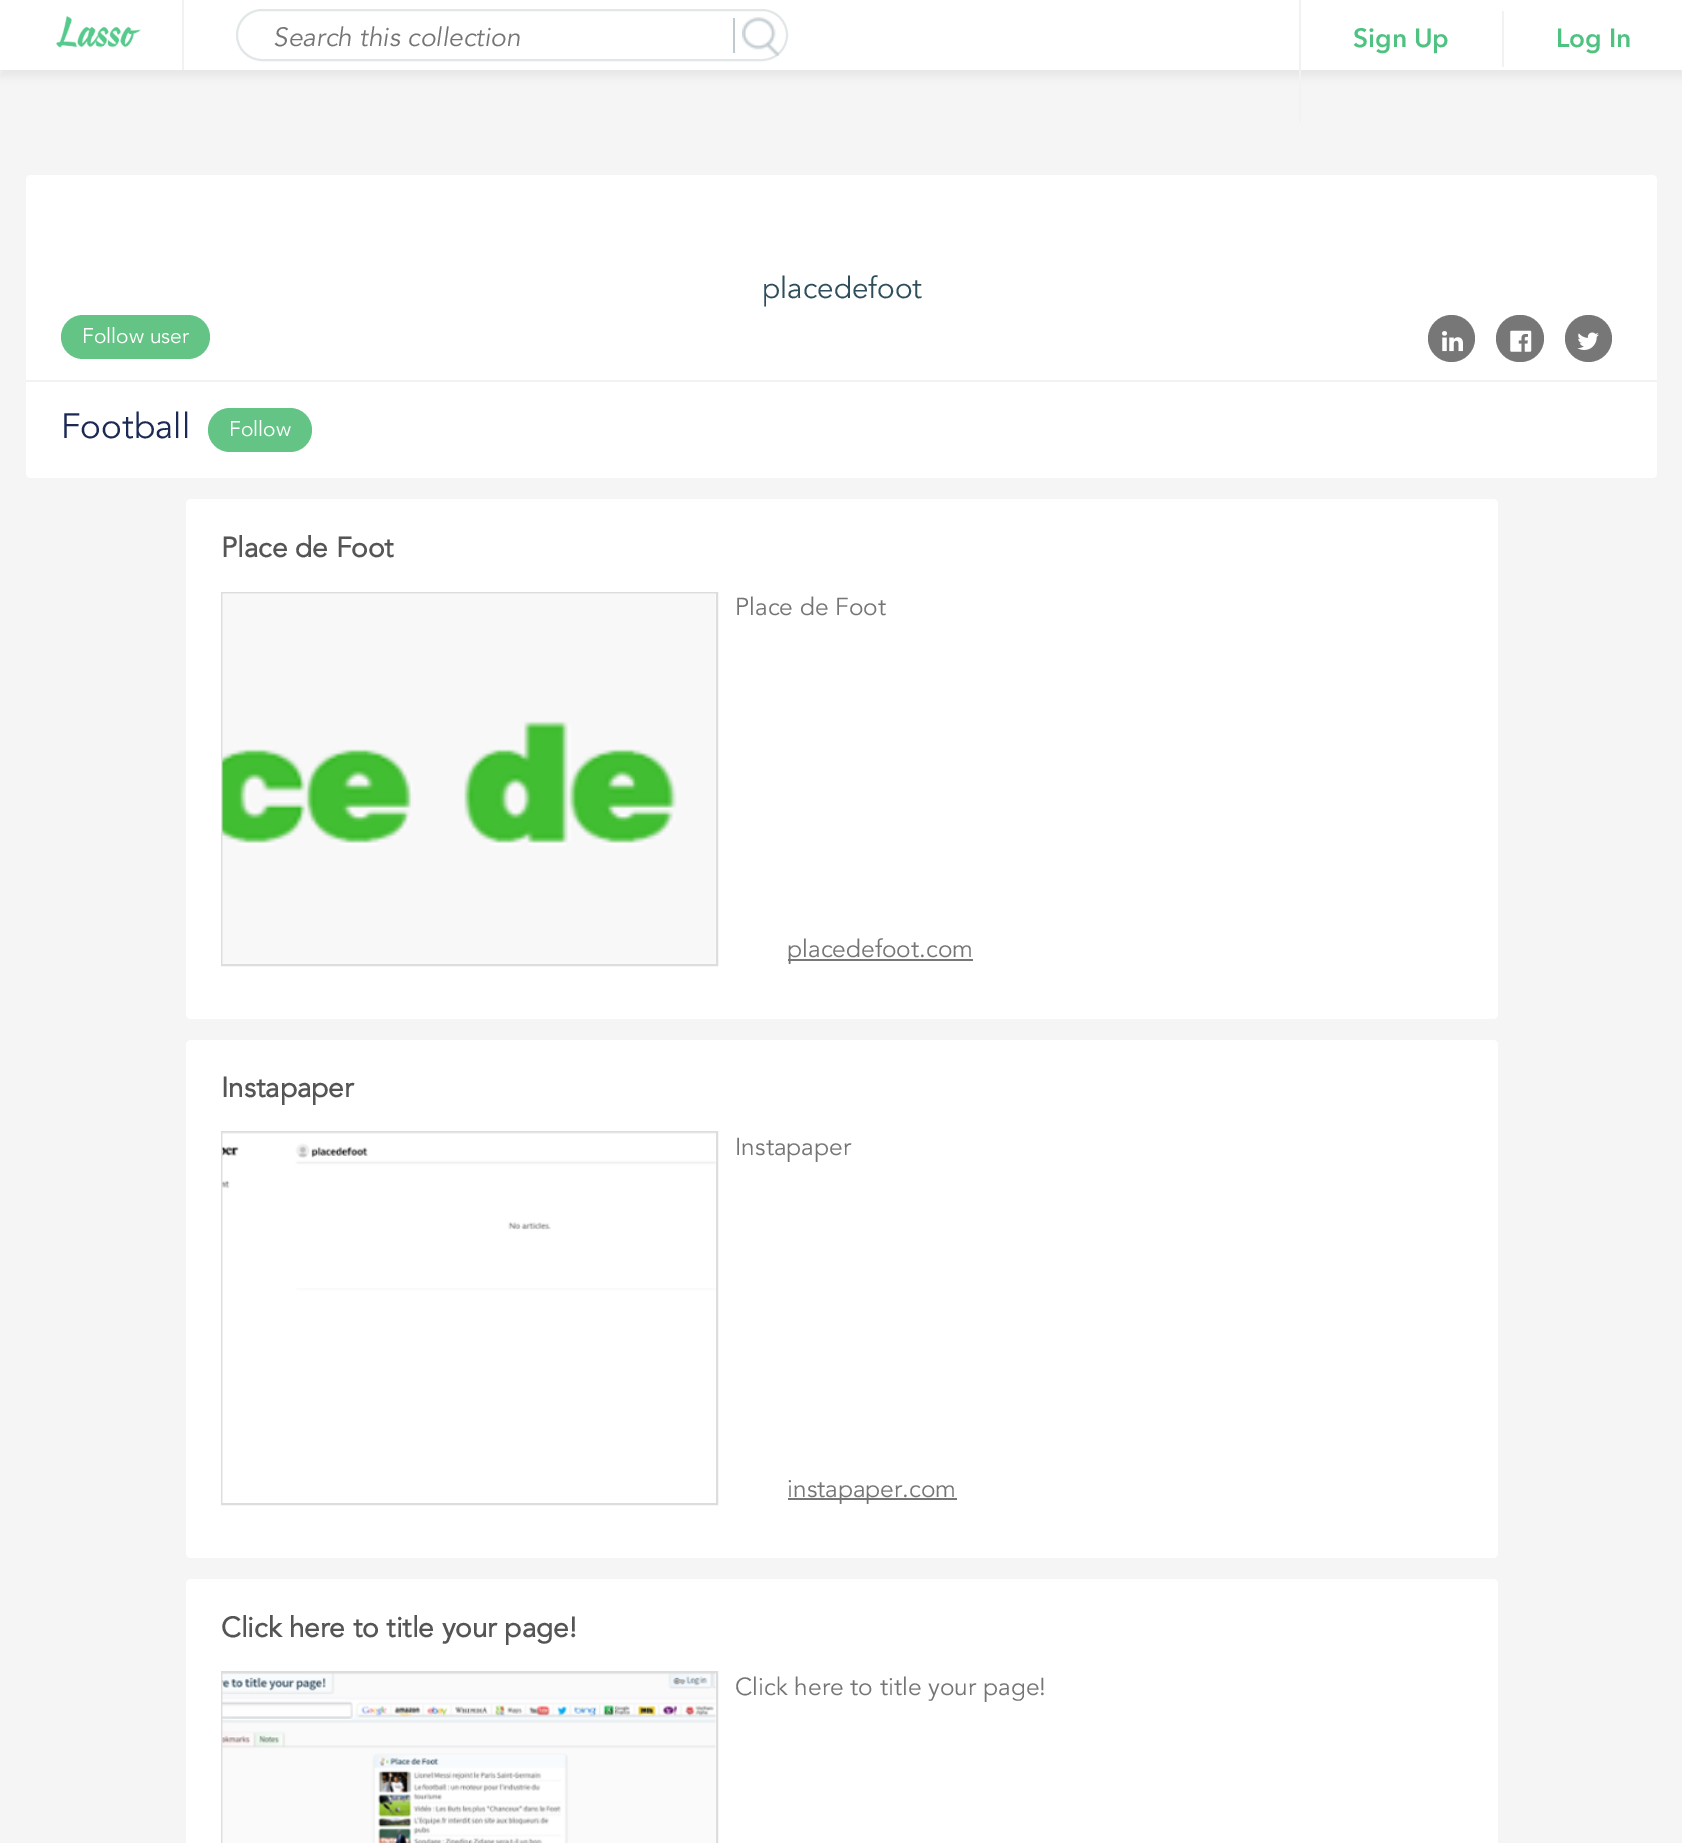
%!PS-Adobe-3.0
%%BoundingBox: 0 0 1682 1843
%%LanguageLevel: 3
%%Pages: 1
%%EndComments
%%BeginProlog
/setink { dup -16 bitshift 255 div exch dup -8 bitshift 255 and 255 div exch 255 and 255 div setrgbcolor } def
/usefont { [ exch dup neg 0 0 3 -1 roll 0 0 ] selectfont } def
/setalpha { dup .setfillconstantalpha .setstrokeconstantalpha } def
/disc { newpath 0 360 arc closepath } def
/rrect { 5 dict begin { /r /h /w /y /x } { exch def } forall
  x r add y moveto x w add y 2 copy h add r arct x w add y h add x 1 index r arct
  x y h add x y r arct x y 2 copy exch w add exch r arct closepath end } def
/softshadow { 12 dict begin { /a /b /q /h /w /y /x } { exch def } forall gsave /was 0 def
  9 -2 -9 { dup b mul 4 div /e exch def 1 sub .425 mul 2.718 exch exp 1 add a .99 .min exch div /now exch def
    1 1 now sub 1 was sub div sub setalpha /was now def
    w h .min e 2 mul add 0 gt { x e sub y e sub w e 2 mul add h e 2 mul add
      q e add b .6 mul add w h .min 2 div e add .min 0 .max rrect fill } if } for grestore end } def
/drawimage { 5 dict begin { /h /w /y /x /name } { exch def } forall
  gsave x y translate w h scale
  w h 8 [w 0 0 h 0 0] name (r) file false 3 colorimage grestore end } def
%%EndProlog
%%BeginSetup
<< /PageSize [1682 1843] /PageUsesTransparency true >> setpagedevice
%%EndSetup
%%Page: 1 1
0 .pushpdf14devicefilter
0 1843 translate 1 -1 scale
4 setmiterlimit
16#F5F5F5 setink
0 0 1682 1843 rectfill
16#E6E6E6 setink
0 7 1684 70 0 4.5 1 softshadow
16#FFFFFF setink
0 0 1682 70 rectfill
16#F4F1F1 setink
182 0 2 70 rectfill
(img1.raw) 56 16 85 32 drawimage
16#E1E7E8 setink
2 setlinewidth
237 10 550 50 25 rrect stroke
/Avenir-Italic 26.25 usefont
16#757575 setink
273 46 moveto (Search this collection) show
16#C0CACE setink
733 18 2 35 rectfill
(img2.raw) 742 17 37 39 drawimage
16#F4F1F1 setink
1299 0 2 123 rectfill
/AvenirNext-SemiBold 26.25 usefont
16#4EC281 setink
1353 47 moveto (Sign Up) show
16#F4F1F1 setink
1502 11 2 56 rectfill
16#4EC281 setink
1556 47 moveto (Log In) show
16#FFFFFF setink
31 175 moveto 1652 175 lineto 1655 175 1657 177 1657 180 curveto 1657 380 lineto 26 380 lineto 26 180 lineto 26 177 28 175 31 175 curveto closepath fill
/Avenir-Regular 29.75 usefont
16#2F4E5C setink
762 298 moveto (placedefoot) show
16#64C486 setink
61 315 149 44 22 rrect fill
/Avenir-Regular 21 usefont
16#FFFFFF setink
82 343 moveto (Follow user) show
16#777777 setink
1451.5 338.5 23.5 disc fill
(img3.raw) 1442 331 21 21 drawimage
1496 315 48 47 23.5 rrect fill
(img4.raw) 1510 330 22 22 drawimage
1588.5 338.5 23.5 disc fill
(img5.raw) 1577 332 22 18 drawimage
16#FFFFFF setink
26 380 moveto 1657 380 lineto 1657 473 lineto 1657 476 1655 478 1652 478 curveto 31 478 lineto 28 478 26 476 26 473 curveto closepath fill
16#F4F1F1 setink
26 380 1631 2 rectfill
/Avenir-Regular 35 usefont
16#1B2954 setink
61 438 moveto (Football) show
16#64C486 setink
208 408 104 44 22 rrect fill
/Avenir-Regular 21 usefont
16#FFFFFF setink
229 436 moveto (Follow) show
186 499 1312 520 5 rrect fill
/Avenir-Bold 28 usefont
16#555555 setink
221 557 moveto (Place de Foot) show
16#DDDDDD setink
222 593 495 372 rectstroke
(img6.raw) 222 593 494 371 drawimage
/Avenir-Regular 24.5 usefont
16#757575 setink
735 615 moveto (Place de Foot) show
16#777777 setink
788 959 185 2 rectfill
16#757575 setink
787 957 moveto (placedefoot.com) show
16#FFFFFF setink
186 1040 1312 518 5 rrect fill
/Avenir-Bold 28 usefont
16#555555 setink
221 1097 moveto (Instapaper) show
16#DDDDDD setink
222 1132 495 372 rectstroke
(img7.raw) 222 1132 494 371 drawimage
/Avenir-Regular 24.5 usefont
16#757575 setink
735 1155 moveto (Instapaper) show
16#777777 setink
788 1498 169 2 rectfill
16#757575 setink
787 1497 moveto (instapaper.com) show
16#FFFFFF setink
186 1579 1312 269 5 rrect fill
/Avenir-Bold 28 usefont
16#555555 setink
221 1637 moveto (Click here to title your page!) show
16#DDDDDD setink
222 1672 495 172 rectstroke
(img8.raw) 222 1673 494 170 drawimage
(img9.raw) 655 1706 46 11 drawimage
/Avenir-Regular 24.5 usefont
16#757575 setink
735 1695 moveto (Click here to title your page!) show
.poppdf14devicefilter showpage
%%EOF
